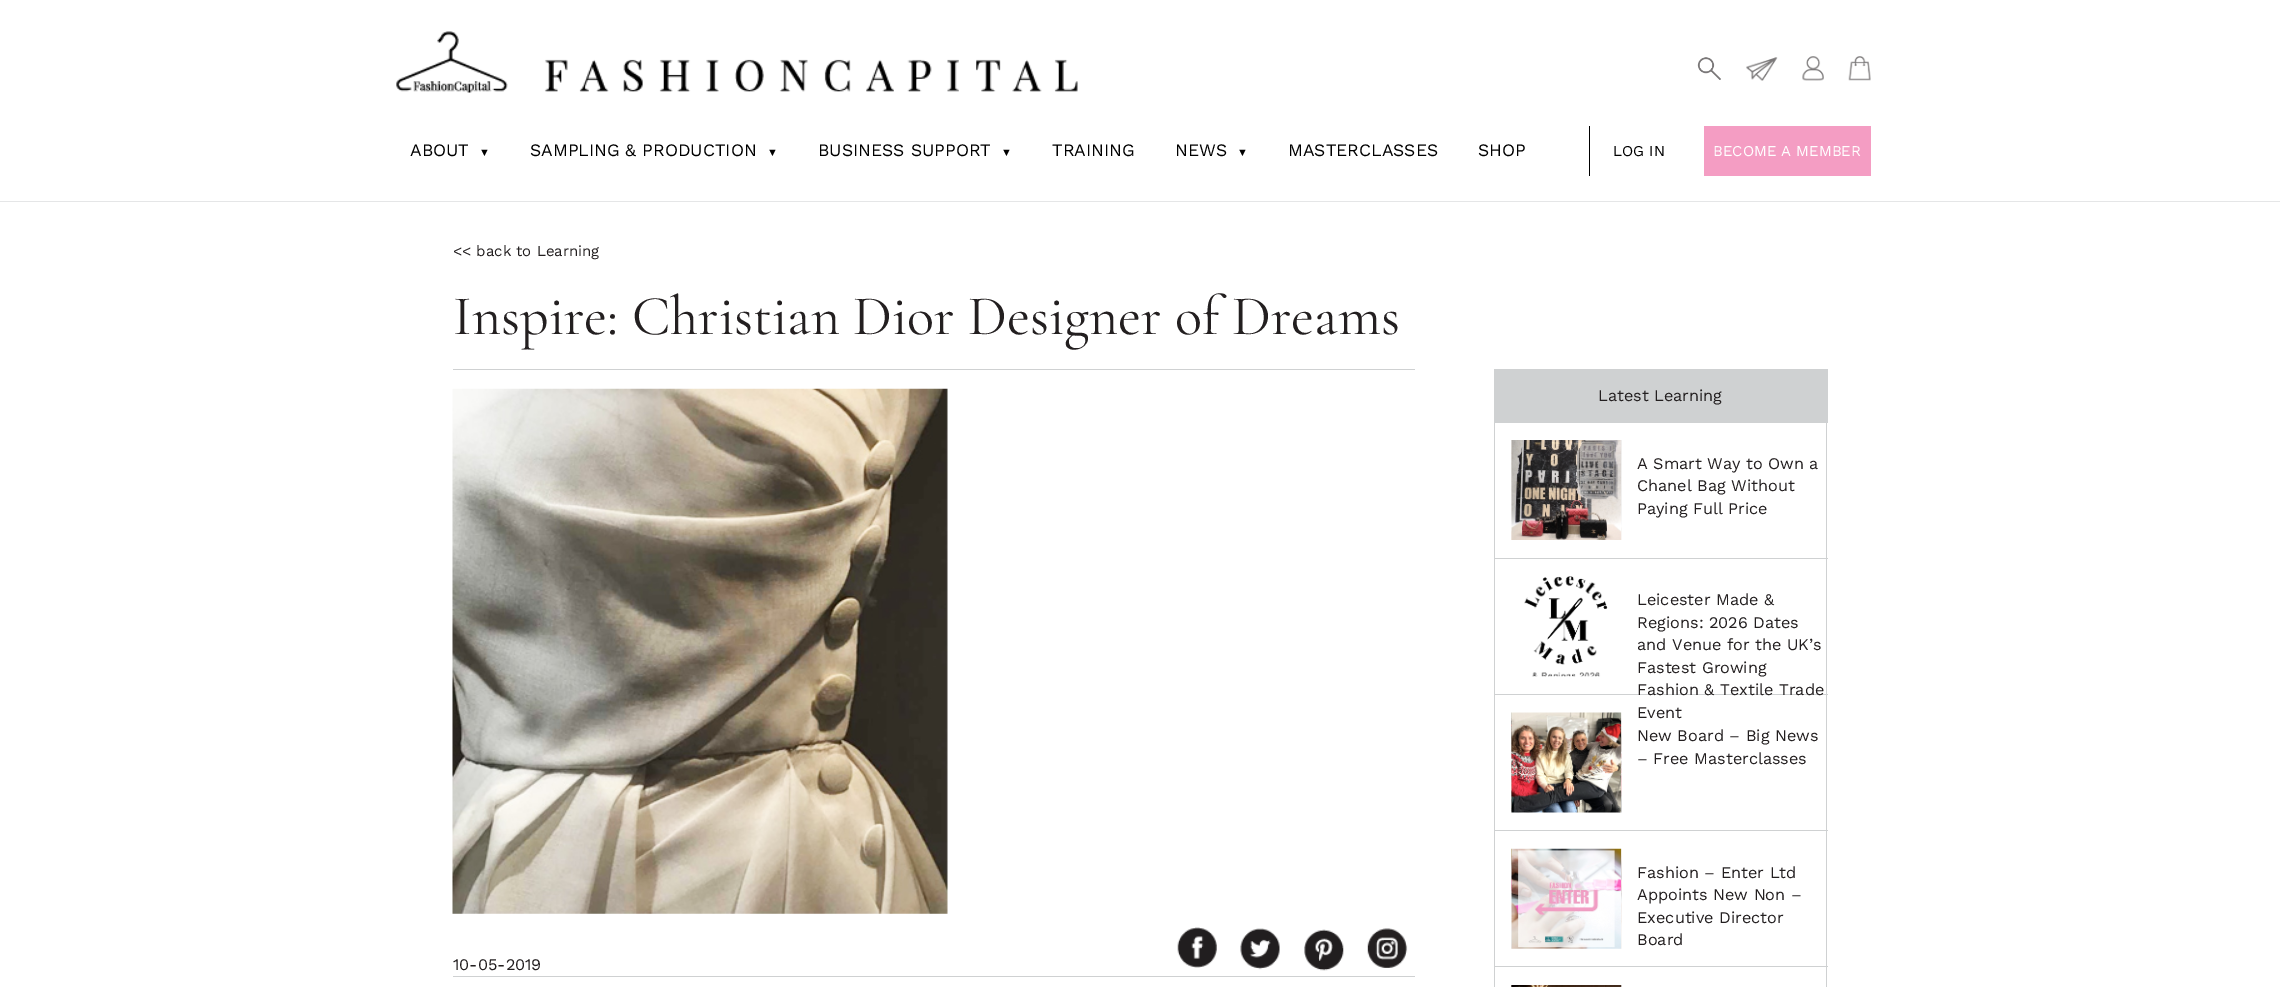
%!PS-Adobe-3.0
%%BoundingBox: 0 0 2280 987
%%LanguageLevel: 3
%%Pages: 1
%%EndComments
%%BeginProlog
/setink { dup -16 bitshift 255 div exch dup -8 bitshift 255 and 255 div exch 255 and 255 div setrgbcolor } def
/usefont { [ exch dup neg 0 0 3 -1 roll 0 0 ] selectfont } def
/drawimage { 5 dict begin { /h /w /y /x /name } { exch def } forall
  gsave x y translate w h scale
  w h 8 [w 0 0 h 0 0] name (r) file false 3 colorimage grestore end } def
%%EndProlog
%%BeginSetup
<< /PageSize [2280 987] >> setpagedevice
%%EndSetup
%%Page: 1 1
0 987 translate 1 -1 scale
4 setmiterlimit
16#FFFFFF setink
0 0 2280 987 rectfill
16#E5E6E7 setink
0 201 2280 1 rectfill
(img1.raw) 396 31 682 62 drawimage
(img2.raw) 1697 57 24 23 drawimage
(img3.raw) 1746 57 32 24 drawimage
(img4.raw) 1802 56 22 25 drawimage
(img5.raw) 1848 56 23 25 drawimage
16#000000 setink
1589 126 1 50 rectfill
/WorkSans-Regular 17.5 usefont
410 156 moveto (ABOUT) show
/LiberationSans-Regular 11 usefont
479 156 moveto (▼) show
/WorkSans-Regular 17.5 usefont
530 156 moveto (SAMPLING & PRODUCTION) show
/LiberationSans-Regular 11 usefont
767 156 moveto (▼) show
/WorkSans-Regular 17.5 usefont
818 156 moveto (BUSINESS SUPPORT) show
/LiberationSans-Regular 11 usefont
1001 156 moveto (▼) show
/WorkSans-Regular 17.5 usefont
1052 156 moveto (TRAINING) show
1175 156 moveto (NEWS) show
/LiberationSans-Regular 11 usefont
1237 156 moveto (▼) show
/WorkSans-Regular 17.5 usefont
1288 156 moveto (MASTERCLASSES) show
1478 156 moveto (SHOP) show
/WorkSans-Regular 15 usefont
1613 156 moveto (LOG IN) show
16#F49DC3 setink
1704 126 167 50 rectfill
16#FFFFFF setink
1713 156 moveto (BECOME A MEMBER) show
16#231F20 setink
453 256 moveto (<< back to Learning) show
/CormorantGaramond-Regular 56.25 usefont
453 334 moveto (Inspire: Christian Dior Designer of Dreams) show
16#CFD1D2 setink
1494 369 334 54 rectfill
/WorkSans-Regular 16.25 usefont
16#231F20 setink
1598 401 moveto (Latest Learning) show
[
    [1826 423 1 564 16#CFD1D2]
    [1494 558 334 1 16#CFD1D2]
    [1494 423 1 136 16#CFD1D2]
] { aload pop setink rectfill } forall
(img6.raw) 1511 440 111 100 drawimage
16#231F20 setink
[
    [(A Smart Way to Own a) 1637 469]
    [(Chanel Bag Without) 1637 491]
    [(Paying Full Price) 1637 514]
] { aload pop moveto show } forall
16#CFD1D2 setink
1494 694 334 1 rectfill
1494 559 1 136 rectfill
(img7.raw) 1524 576 84 101 drawimage
16#231F20 setink
[
    [(Leicester Made &) 1637 605]
    [(Regions: 2026 Dates) 1637 628]
    [(and Venue for the UK’s) 1637 650]
    [(Fastest Growing) 1637 673]
    [(Fashion & Textile Trade) 1637 695]
    [(Event) 1637 718]
] { aload pop moveto show } forall
16#CFD1D2 setink
1494 830 334 1 rectfill
1494 695 1 136 rectfill
(img8.raw) 1511 712 111 101 drawimage
16#231F20 setink
1637 741 moveto (New Board – Big News) show
1637 764 moveto (– Free Masterclasses) show
16#CFD1D2 setink
1494 966 334 1 rectfill
1494 831 1 156 rectfill
(img9.raw) 1511 848 111 101 drawimage
16#231F20 setink
[
    [(Fashion – Enter Ltd) 1637 878]
    [(Appoints New Non –) 1637 900]
    [(Executive Director) 1637 923]
    [(Board) 1637 945]
] { aload pop moveto show } forall
(img10.raw) 1511 985 111 2 drawimage
16#CFD1D2 setink
453 369 962 1 rectfill
(img11.raw) 452 388 496 526 drawimage
16#231F20 setink
453 970 moveto (10-05-2019) show
(img12.raw) 1177 927 40 41 drawimage
(img13.raw) 1240 928 40 42 drawimage
(img14.raw) 1304 929 40 42 drawimage
(img15.raw) 1367 928 41 40 drawimage
16#CFD1D2 setink
453 976 962 1 rectfill
showpage
%%EOF
